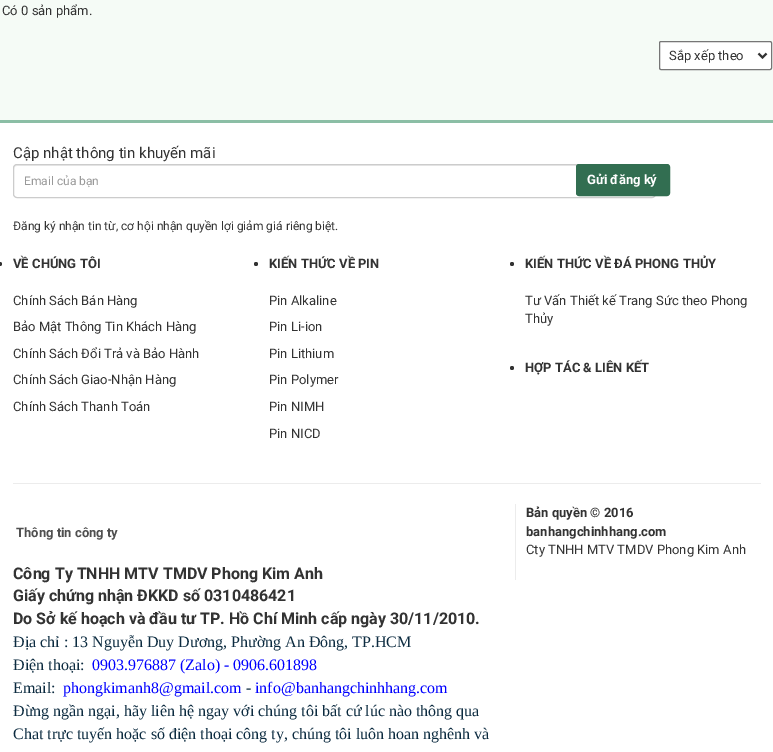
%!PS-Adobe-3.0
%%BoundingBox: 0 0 773 752
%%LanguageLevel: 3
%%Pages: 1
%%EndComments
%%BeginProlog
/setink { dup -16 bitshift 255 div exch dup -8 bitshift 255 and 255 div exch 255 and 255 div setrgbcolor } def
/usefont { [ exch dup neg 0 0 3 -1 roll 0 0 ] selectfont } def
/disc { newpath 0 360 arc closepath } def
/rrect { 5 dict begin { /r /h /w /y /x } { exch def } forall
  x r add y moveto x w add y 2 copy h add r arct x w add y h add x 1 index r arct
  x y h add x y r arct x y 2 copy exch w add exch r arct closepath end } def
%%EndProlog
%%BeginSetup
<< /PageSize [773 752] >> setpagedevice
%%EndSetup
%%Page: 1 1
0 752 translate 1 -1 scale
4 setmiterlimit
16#F5FBF6 setink
0 0 773 752 rectfill
/Roboto-Regular 13 usefont
16#333333 setink
2 15 moveto (Có 0 sản phẩm.) show
16#FFFFFF setink
659.5 41.5 112 28 1.5 rrect gsave fill grestore
16#767676 setink
stroke
16#333333 setink
2 setlinewidth
758.5 53.5 moveto 762.5 57.5 lineto 766.5 53.5 lineto stroke
669 60 moveto (Sắp xếp theo) show
16#FFFFFF setink
0 123 773 629 rectfill
16#8BBEA5 setink
0 120 773 3 rectfill
/Roboto-Regular 15 usefont
16#333333 setink
13 158 moveto (Cập nhật thông tin khuyến mãi) show
16#ECECEC setink
17 166 moveto 652 166 lineto 654 166 655 167 655 169 curveto 655 168 lineto 655 166 654 165 652 165 curveto 17 165 lineto 15 165 14 166 14 168 curveto 14 169 lineto 14 167 15 166 17 166 curveto closepath fill
16#CCCCCC setink
1 setlinewidth
13.5 164.5 642 33 3.5 rrect stroke
/Roboto-Regular 12 usefont
16#999999 setink
24 185 moveto (Email của bạn) show
16#326E51 setink
576.5 164.5 93 31 2.5 rrect gsave fill grestore
stroke
/Roboto-Bold 13 usefont
16#FFFFFF setink
587 184 moveto (Gửi đăng ký) show
/Roboto-Regular 12 usefont
16#333333 setink
13 230 moveto (Đăng ký nhận tin từ, cơ hội nhận quyền lợi giảm giá riêng biệt.) show
0 264 2 disc fill
/Roboto-Bold 13 usefont
13 268 moveto (VỀ CHÚNG TÔI) show
/Roboto-Regular 13 usefont
[
    [(Chính Sách Bán Hàng) 13 305]
    [(Bảo Mật Thông Tin Khách Hàng) 13 331]
    [(Chính Sách Đổi Trả và Bảo Hành) 13 358]
    [(Chính Sách Giao-Nhận Hàng) 13 384]
    [(Chính Sách Thanh Toán) 13 411]
] { aload pop moveto show } forall
256 264 2 disc fill
/Roboto-Bold 13 usefont
269 268 moveto (KIẾN THỨC VỀ PIN) show
/Roboto-Regular 13 usefont
[
    [(Pin Alkaline) 269 305]
    [(Pin Li-ion) 269 331]
    [(Pin Lithium) 269 358]
    [(Pin Polymer) 269 384]
    [(Pin NIMH) 269 411]
    [(Pin NICD) 269 438]
] { aload pop moveto show } forall
512 264 2 disc fill
/Roboto-Bold 13 usefont
525 268 moveto (KIẾN THỨC VỀ ĐÁ PHONG THỦY) show
/Roboto-Regular 13 usefont
525 305 moveto (Tư Vấn Thiết kế Trang Sức theo Phong) show
525 323 moveto (Thủy) show
512 368 2 disc fill
/Roboto-Bold 13 usefont
525 372 moveto (HỢP TÁC & LIÊN KẾT) show
16#ECECEC setink
13 483 748 1 rectfill
16#505050 setink
16 537 moveto (Thông tin công ty) show
/Roboto-Bold 16 usefont
16#333333 setink
[
    [(Công Ty TNHH MTV TMDV Phong Kim Anh) 13 579]
    [(Giấy chứng nhận ĐKKD số 0310486421) 13 601]
    [(Do Sở kế hoạch và đầu tư TP. Hồ Chí Minh cấp ngày 30/11/2010.) 13 624]
] { aload pop moveto show } forall
/LiberationSerif-Regular 16 usefont
16#0C2B40 setink
13 647 moveto (Địa chỉ : 13 Nguyễn Duy Dương, Phường An Đông, TP.HCM) show
13 670 moveto (Điện thoại:) show
16#0000FF setink
92 670 moveto (0903.976887 \(Zalo\) - 0906.601898) show
16#0C2B40 setink
13 693 moveto (Email:) show
16#0000FF setink
63 693 moveto (phongkimanh8@gmail.com) show
16#0C2B40 setink
246 693 moveto (-) show
16#0000FF setink
255 693 moveto (info@banhangchinhhang.com) show
16#0C2B40 setink
13 716 moveto (Đừng ngần ngại, hãy liên hệ ngay với chúng tôi bất cứ lúc nào thông qua) show
13 739 moveto (Chat trực tuyến hoặc số điện thoại công ty, chúng tôi luôn hoan nghênh và) show
16#ECECEC setink
515 504 1 76 rectfill
/Roboto-Bold 13 usefont
16#333333 setink
526 517 moveto (Bản quyền © 2016) show
526 536 moveto (banhangchinhhang.com) show
/Roboto-Regular 13 usefont
526 554 moveto (Cty TNHH MTV TMDV Phong Kim Anh) show
showpage
%%EOF
